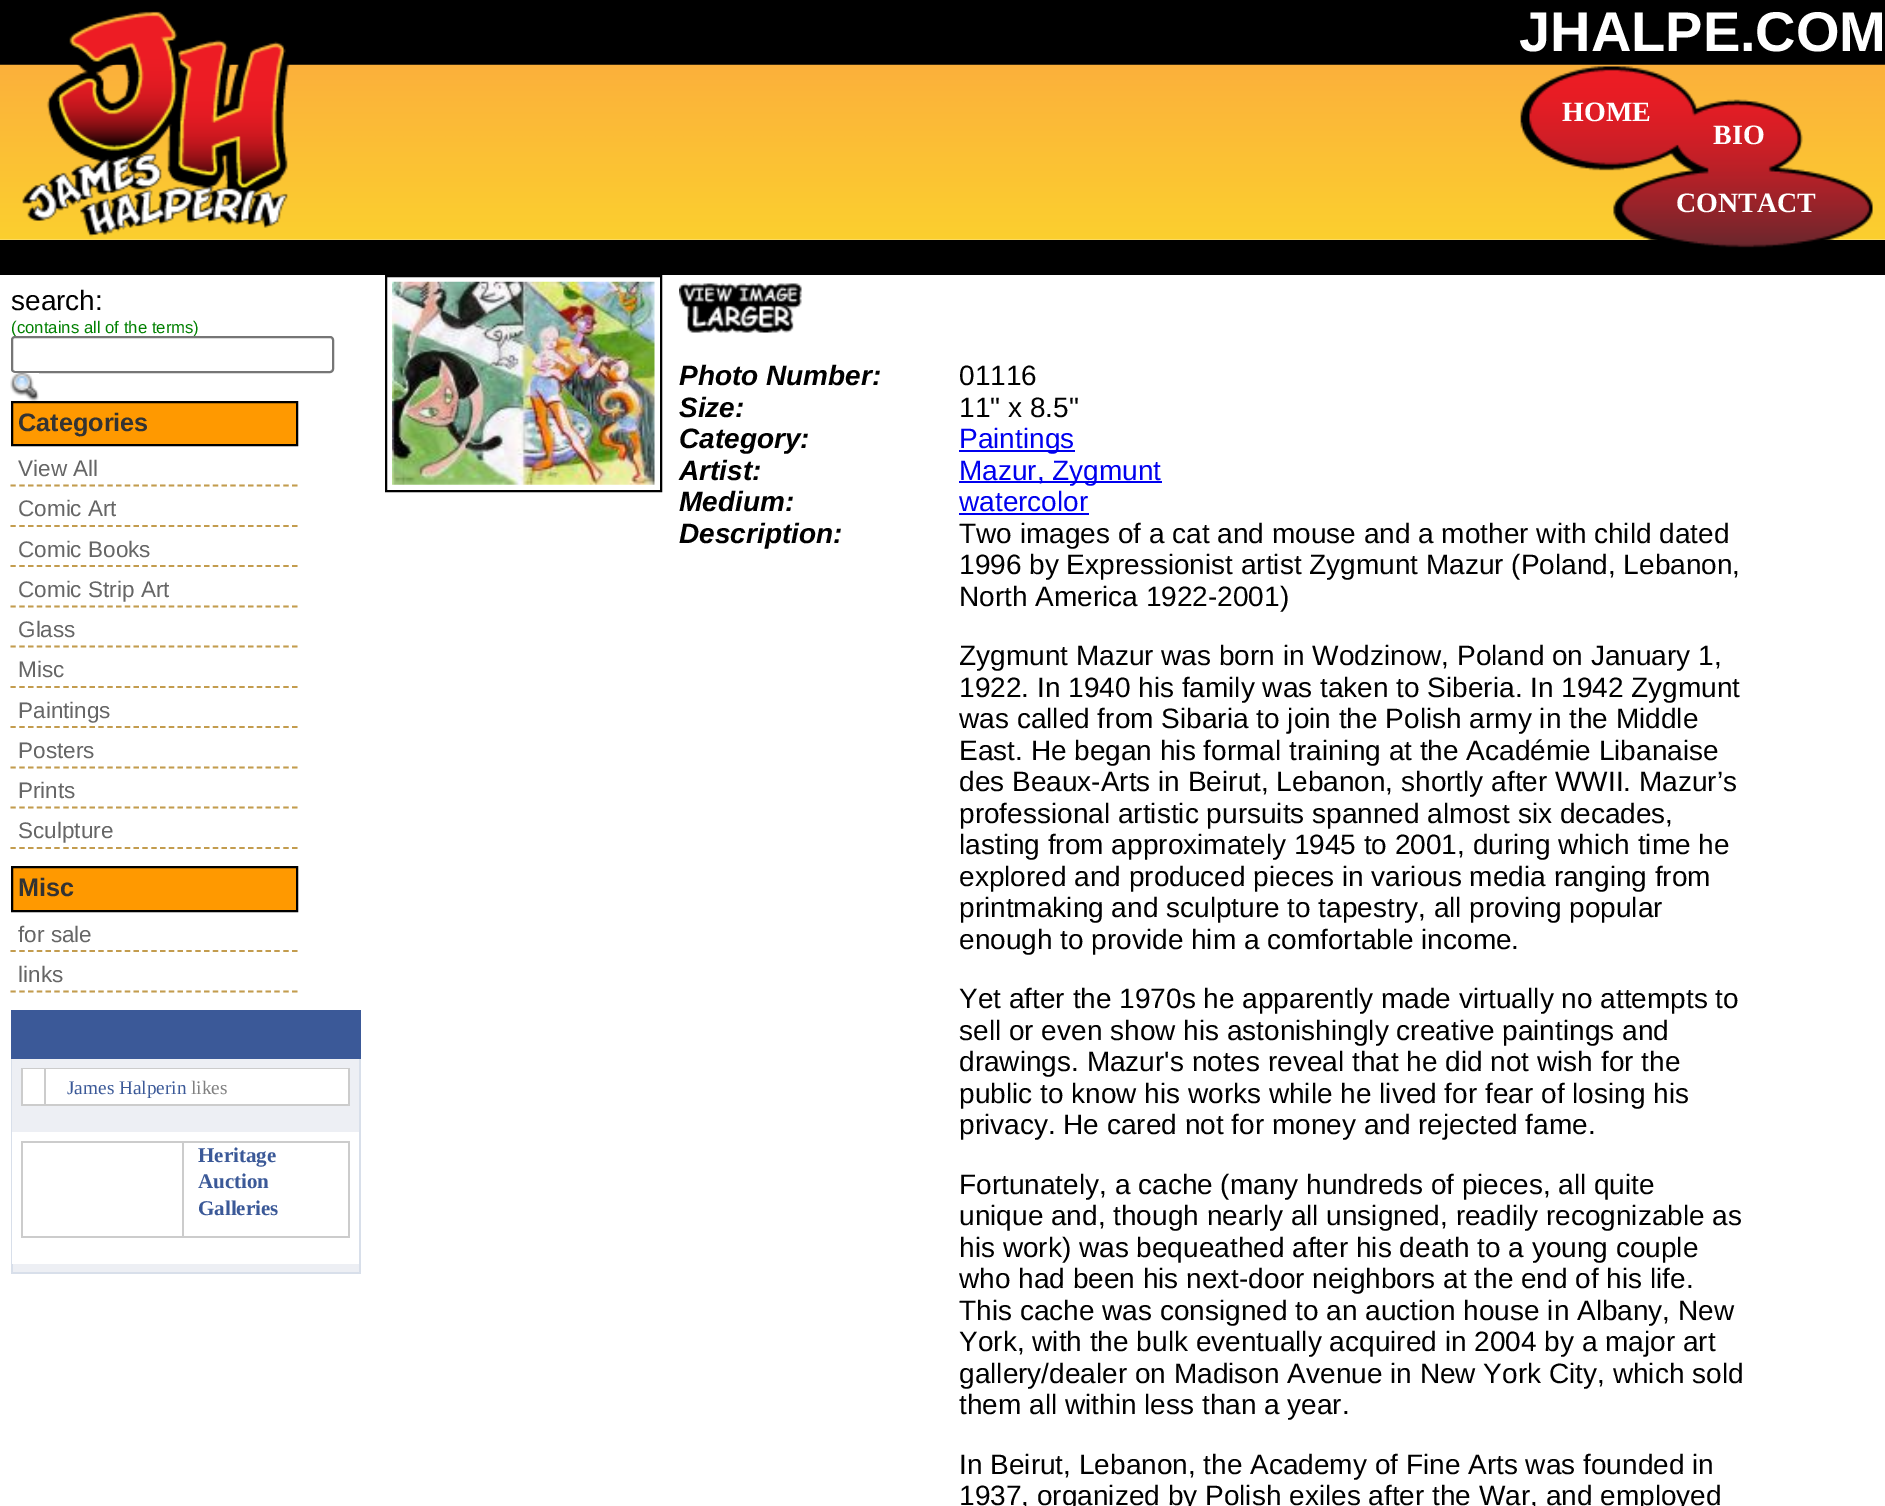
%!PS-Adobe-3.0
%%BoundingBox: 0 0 1885 1506
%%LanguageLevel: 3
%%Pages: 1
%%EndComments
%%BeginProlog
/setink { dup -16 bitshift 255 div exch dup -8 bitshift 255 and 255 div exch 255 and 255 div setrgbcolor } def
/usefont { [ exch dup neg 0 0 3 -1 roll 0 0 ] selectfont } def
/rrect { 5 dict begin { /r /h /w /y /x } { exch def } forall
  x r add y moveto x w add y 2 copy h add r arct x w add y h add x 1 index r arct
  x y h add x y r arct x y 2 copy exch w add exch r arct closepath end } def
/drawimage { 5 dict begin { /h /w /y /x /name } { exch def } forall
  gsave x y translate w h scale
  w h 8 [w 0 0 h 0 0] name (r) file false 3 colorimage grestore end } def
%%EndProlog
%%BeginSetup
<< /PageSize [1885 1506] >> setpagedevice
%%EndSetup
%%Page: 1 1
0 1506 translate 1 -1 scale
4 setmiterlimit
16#FFFFFF setink
0 0 1885 1506 rectfill
16#000000 setink
0 0 1885 65 rectfill
(img2.raw) 0 64 1885 176 drawimage
(img1.raw) 22 11 268 226 drawimage
/LiberationSans-Bold 56 usefont
16#FFFFFF setink
1519 51 moveto (JHALPE.COM) show
16#000000 setink
0 240 1885 35 rectfill
(img3.raw) 1520 66 353 182 drawimage
/LiberationSerif-Bold 28 usefont
16#FFFFFF setink
[
    [(HOME) 1562 121]
    [(BIO) 1713 144]
    [(CONTACT) 1676 212]
] { aload pop moveto show } forall
/LiberationSans-Regular 28 usefont
16#000000 setink
11 310 moveto (search:) show
/LiberationSans-Regular 16.75 usefont
16#008000 setink
11 333 moveto (\(contains all of the terms\)) show
16#FFFFFF setink
12 337 321 35 3 rrect gsave fill grestore
16#767676 setink
2 setlinewidth
stroke
(img4.raw) 10 372 29 29 drawimage
16#FF9900 setink
12 402 moveto 297 402 lineto 297 445 lineto 12 445 lineto closepath gsave fill grestore
16#000000 setink
stroke
/LiberationSans-Bold 25.25 usefont
16#333333 setink
18 431 moveto (Categories) show
16#C39C4E setink
1.8 setlinewidth
[5.25 3.55] 0 setdash
10.5 485.5 moveto 297.5 485.5 lineto stroke
/LiberationSans-Regular 22.5 usefont
16#666666 setink
18 476 moveto (View All) show
16#C39C4E setink
10.5 526 moveto 297.5 526 lineto stroke
16#666666 setink
18 516 moveto (Comic Art) show
16#C39C4E setink
10.5 566 moveto 297.5 566 lineto stroke
16#666666 setink
18 557 moveto (Comic Books) show
16#C39C4E setink
10.5 606.5 moveto 297.5 606.5 lineto stroke
16#666666 setink
18 597 moveto (Comic Strip Art) show
16#C39C4E setink
10.5 646.5 moveto 297.5 646.5 lineto stroke
16#666666 setink
18 637 moveto (Glass) show
16#C39C4E setink
10.5 687 moveto 297.5 687 lineto stroke
16#666666 setink
18 677 moveto (Misc) show
16#C39C4E setink
10.5 727 moveto 297.5 727 lineto stroke
16#666666 setink
18 718 moveto (Paintings) show
16#C39C4E setink
10.5 767.5 moveto 297.5 767.5 lineto stroke
16#666666 setink
18 758 moveto (Posters) show
16#C39C4E setink
10.5 807.5 moveto 297.5 807.5 lineto stroke
16#666666 setink
18 798 moveto (Prints) show
16#C39C4E setink
10.5 848 moveto 297.5 848 lineto stroke
16#666666 setink
18 838 moveto (Sculpture) show
16#FF9900 setink
12 867 moveto 297 867 lineto 297 911 lineto 12 911 lineto closepath gsave fill grestore
16#000000 setink
2 setlinewidth
[] 0 setdash
stroke
/LiberationSans-Bold 25.25 usefont
16#333333 setink
18 896 moveto (Misc) show
16#C39C4E setink
1.8 setlinewidth
[5.25 3.55] 0 setdash
10.5 951 moveto 297.5 951 lineto stroke
/LiberationSans-Regular 22.5 usefont
16#666666 setink
18 942 moveto (for sale) show
16#C39C4E setink
10.5 991.5 moveto 297.5 991.5 lineto stroke
16#666666 setink
18 982 moveto (links) show
[
    [11 1010 350 49 16#3B5998]
    [13 1264 346 8 16#EDEFF4]
    [359 1059 2 215 16#D8DFEA]
    [11 1272 350 2 16#D8DFEA]
    [11 1059 2 215 16#D8DFEA]
    [12 1059 347 73 16#EDEFF4]
    [21 1068 329 1 16#CCCCCC]
    [21 1104 329 2 16#CCCCCC]
    [21 1068 2 38 16#CCCCCC]
    [23 1069 21 35 16#FFFFFF]
    [44 1069 2 35 16#CCCCCC]
    [46 1069 302 35 16#FFFFFF]
    [348 1069 2 35 16#CCCCCC]
] { aload pop setink rectfill } forall
/LiberationSerif-Regular 19.25 usefont
16#3B5998 setink
67 1094 moveto (James Halperin) show
16#808080 setink
191 1094 moveto (likes) show
[
    [12 1132 1 132 16#FFFFFF]
    [21 1141 329 2 16#CCCCCC]
    [21 1236 329 2 16#CCCCCC]
    [21 1141 2 96 16#CCCCCC]
    [182 1143 2 93 16#CCCCCC]
    [348 1143 2 93 16#CCCCCC]
] { aload pop setink rectfill } forall
/LiberationSerif-Bold 21 usefont
16#3B5998 setink
[
    [(Heritage) 198 1162]
    [(Auction) 198 1188]
    [(Galleries) 198 1215]
] { aload pop moveto show } forall
16#000000 setink
2 setlinewidth
[] 0 setdash
386 276 275 215 rectstroke
(img5.raw) 392 281 263 204 drawimage
(img6.raw) 679 283 123 50 drawimage
/LiberationSans-BoldItalic 28 usefont
679 385 moveto (Photo Number:) show
/LiberationSans-Regular 28 usefont
959 385 moveto (01116) show
/LiberationSans-BoldItalic 28 usefont
679 417 moveto (Size:) show
/LiberationSans-Regular 28 usefont
959 417 moveto (11" x 8.5") show
/LiberationSans-BoldItalic 28 usefont
679 448 moveto (Category:) show
16#0000EE setink
959 450 116 2 rectfill
/LiberationSans-Regular 28 usefont
959 448 moveto (Paintings) show
/LiberationSans-BoldItalic 28 usefont
16#000000 setink
679 480 moveto (Artist:) show
16#0000EE setink
959 481 203 2 rectfill
/LiberationSans-Regular 28 usefont
959 480 moveto (Mazur, Zygmunt) show
/LiberationSans-BoldItalic 28 usefont
16#000000 setink
679 511 moveto (Medium:) show
/LiberationSans-Regular 28 usefont
16#0000EE setink
959 511 moveto (watercolor) show
959 513 130 2 rectfill
/LiberationSans-BoldItalic 28 usefont
16#000000 setink
679 543 moveto (Description:) show
/LiberationSans-Regular 28 usefont
[
    [(Two images of a cat and mouse and a mother with child dated) 959 543]
    [(1996 by Expressionist artist Zygmunt Mazur \(Poland, Lebanon,) 959 574]
    [(North America 1922-2001\)) 959 606]
    [(Zygmunt Mazur was born in Wodzinow, Poland on January 1,) 959 665]
    [(1922. In 1940 his family was taken to Siberia. In 1942 Zygmunt) 959 697]
    [(was called from Sibaria to join the Polish army in the Middle) 959 728]
    [(East. He began his formal training at the Académie Libanaise) 959 760]
    [(des Beaux-Arts in Beirut, Lebanon, shortly after WWII. Mazur’s) 959 791]
    [(professional artistic pursuits spanned almost six decades,) 959 823]
    [(lasting from approximately 1945 to 2001, during which time he) 959 854]
    [(explored and produced pieces in various media ranging from) 959 886]
    [(printmaking and sculpture to tapestry, all proving popular) 959 917]
    [(enough to provide him a comfortable income.) 959 949]
    [(Yet after the 1970s he apparently made virtually no attempts to) 959 1008]
    [(sell or even show his astonishingly creative paintings and) 959 1040]
    [(drawings. Mazur's notes reveal that he did not wish for the) 959 1071]
    [(public to know his works while he lived for fear of losing his) 959 1103]
    [(privacy. He cared not for money and rejected fame.) 959 1134]
    [(Fortunately, a cache \(many hundreds of pieces, all quite) 959 1194]
    [(unique and, though nearly all unsigned, readily recognizable as) 959 1225]
    [(his work\) was bequeathed after his death to a young couple) 959 1257]
    [(who had been his next-door neighbors at the end of his life.) 959 1288]
    [(This cache was consigned to an auction house in Albany, New) 959 1320]
    [(York, with the bulk eventually acquired in 2004 by a major art) 959 1351]
    [(gallery/dealer on Madison Avenue in New York City, which sold) 959 1383]
    [(them all within less than a year.) 959 1414]
    [(In Beirut, Lebanon, the Academy of Fine Arts was founded in) 959 1474]
    [(1937, organized by Polish exiles after the War, and employed) 959 1505]
] { aload pop moveto show } forall
showpage
%%EOF
